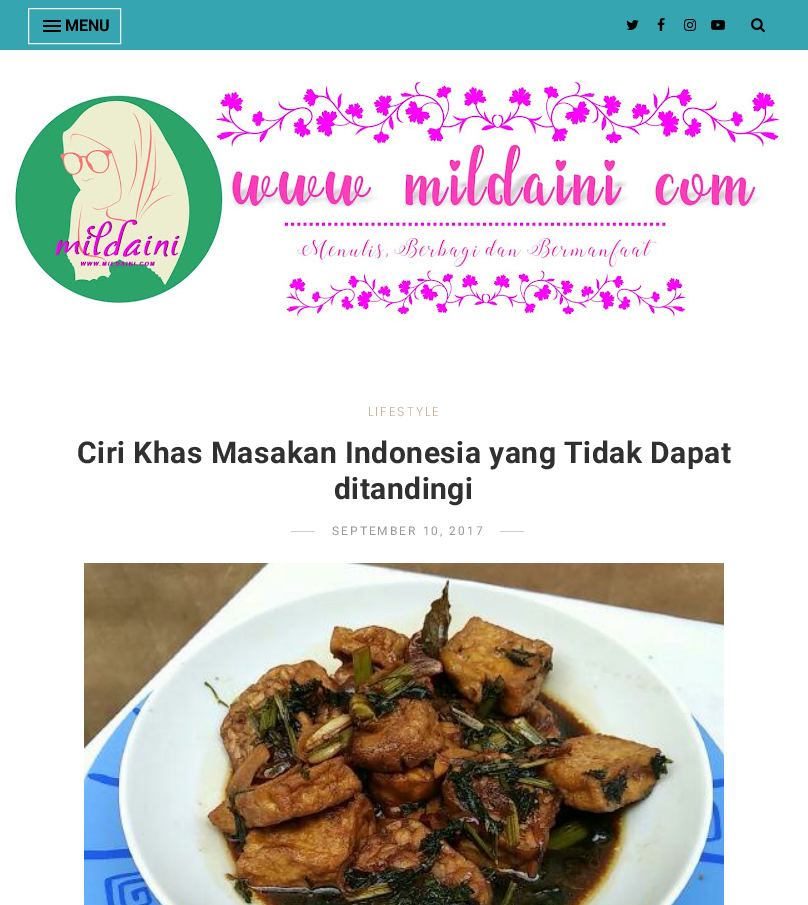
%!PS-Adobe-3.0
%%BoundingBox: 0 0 808 905
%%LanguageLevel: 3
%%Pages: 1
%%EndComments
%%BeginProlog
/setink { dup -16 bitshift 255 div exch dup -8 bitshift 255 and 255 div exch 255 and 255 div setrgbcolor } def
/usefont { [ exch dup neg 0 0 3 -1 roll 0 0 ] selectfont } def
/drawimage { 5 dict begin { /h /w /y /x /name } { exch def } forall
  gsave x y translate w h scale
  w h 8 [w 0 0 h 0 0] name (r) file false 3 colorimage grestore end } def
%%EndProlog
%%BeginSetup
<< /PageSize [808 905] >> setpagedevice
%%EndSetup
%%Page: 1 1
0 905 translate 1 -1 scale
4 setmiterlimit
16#FFFFFF setink
0 0 808 905 rectfill
16#36A5B2 setink
0 0 808 50 rectfill
16#F7F7F7 setink
0 50 808 1 rectfill
16#EEEEEE setink
28.5 8.5 92 35 rectstroke
[
    [43 20 18 2 16#000000]
    [43 25 18 2 16#000000]
    [43 30 18 2 16#000000]
] { aload pop setink rectfill } forall
/Roboto-Bold 16 usefont
65 31 moveto (MENU) show
(img1.raw) 626 20 13 10 drawimage
(img2.raw) 657 18 8 13 drawimage
(img3.raw) 684 19 12 12 drawimage
(img4.raw) 711 20 14 10 drawimage
(img5.raw) 751 18 14 15 drawimage
(img6.raw) 9 81 776 240 drawimage
/Poppins-Light 13 usefont
16#D1B099 setink
368 416 moveto 2 0 (LIFESTYLE) ashow
/Roboto-Bold 30 usefont
16#303030 setink
77 463 moveto 0.5 0 (Ciri Khas Masakan Indonesia yang Tidak Dapat) ashow
334 499 moveto 0.5 0 (ditandingi) ashow
16#CCCCCC setink
291 531 24 1 rectfill
/Roboto-Regular 12 usefont
16#999999 setink
332 535 moveto 2 0 (SEPTEMBER 10, 2017) ashow
16#CCCCCC setink
500 531 24 1 rectfill
(img7.raw) 84 563 640 342 drawimage
showpage
%%EOF
